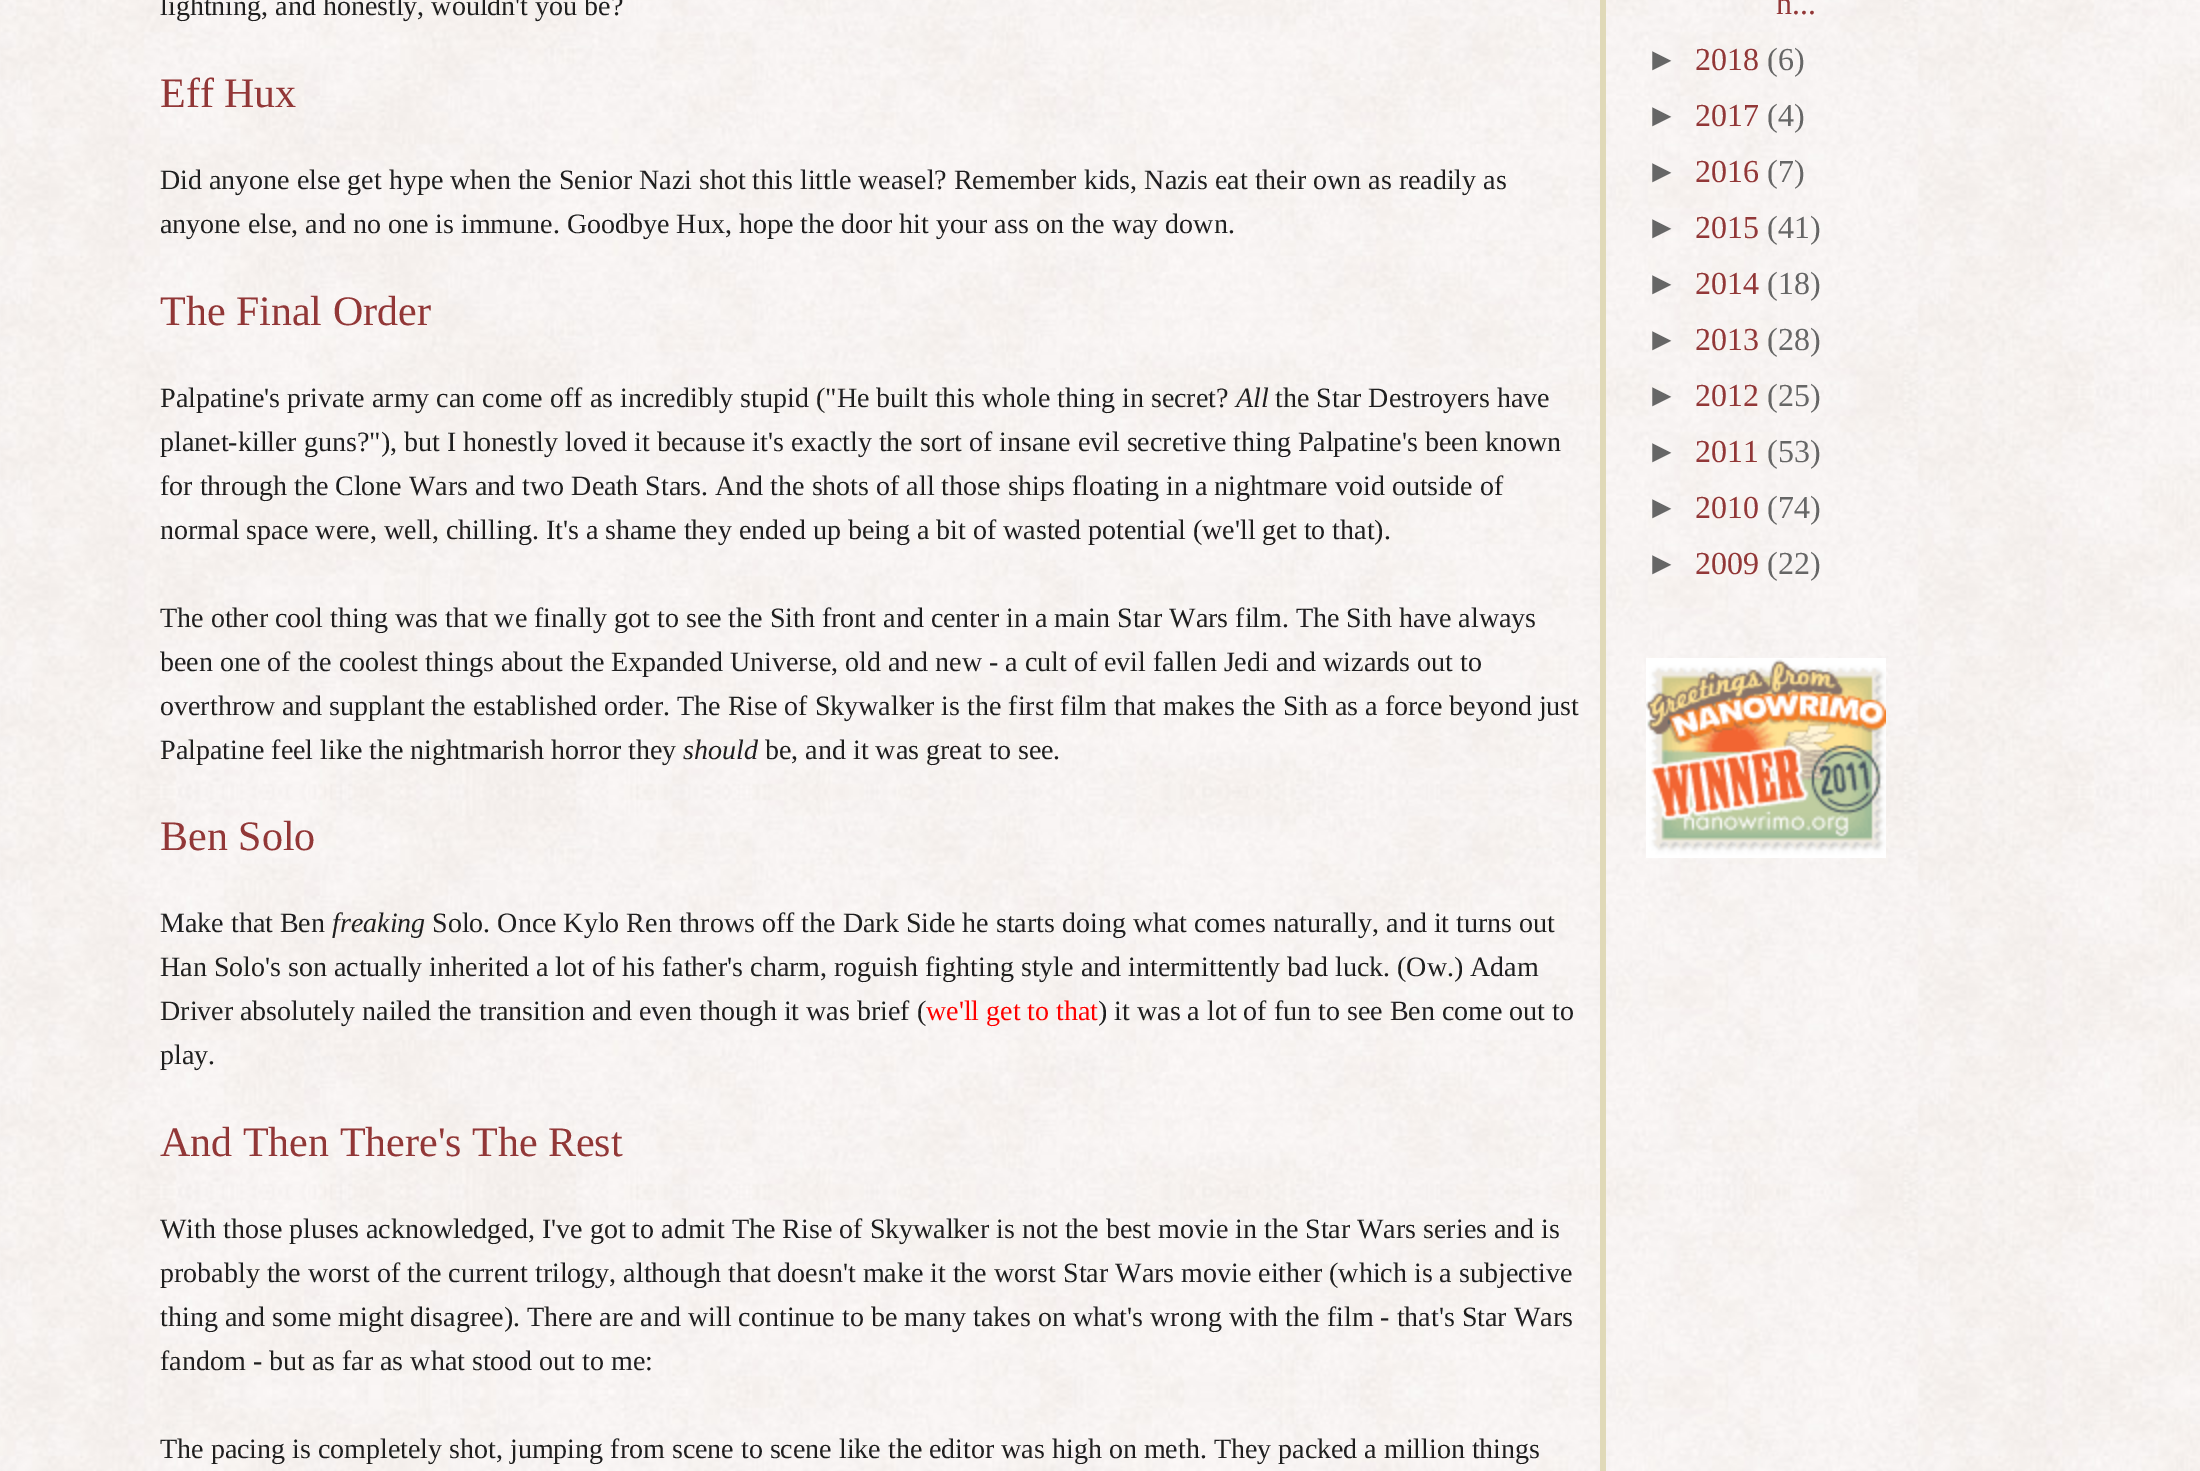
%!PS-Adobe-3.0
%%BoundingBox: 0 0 2200 1471
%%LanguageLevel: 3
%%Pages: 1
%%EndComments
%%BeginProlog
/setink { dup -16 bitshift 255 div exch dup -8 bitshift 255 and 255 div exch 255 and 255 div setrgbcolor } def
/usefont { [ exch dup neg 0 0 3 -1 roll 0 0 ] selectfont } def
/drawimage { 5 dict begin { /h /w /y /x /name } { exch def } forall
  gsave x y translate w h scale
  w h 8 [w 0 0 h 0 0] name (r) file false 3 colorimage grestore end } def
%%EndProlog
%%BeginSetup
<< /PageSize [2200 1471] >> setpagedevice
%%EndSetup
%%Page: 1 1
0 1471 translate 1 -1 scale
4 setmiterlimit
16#FFFFFF setink
0 0 2200 1471 rectfill
(img1.raw) 0 0 2200 1471 drawimage
16#E0D9B8 setink
1600 0 6 1471 rectfill
/LiberationSerif-Regular 28 usefont
16#1F1F1F setink
160 15 moveto (lightning, and honestly, wouldn't you be?) show
/LiberationSerif-Regular 42 usefont
16#923737 setink
160 107 moveto (Eff Hux) show
/LiberationSerif-Regular 28 usefont
16#1F1F1F setink
160 189 moveto (Did anyone else get hype when the Senior Nazi shot this little weasel? Remember kids, Nazis eat their own as readily as) show
160 233 moveto (anyone else, and no one is immune. Goodbye Hux, hope the door hit your ass on the way down.) show
/LiberationSerif-Regular 42 usefont
16#923737 setink
160 325 moveto (The Final Order) show
/LiberationSerif-Regular 28 usefont
16#1F1F1F setink
160 407 moveto (Palpatine's private army can come off as incredibly stupid \("He built this whole thing in secret?) show
/LiberationSerif-Italic 28 usefont
1236 407 moveto (All) show
/LiberationSerif-Regular 28 usefont
[
    [(the Star Destroyers have) 1275 407]
    [(planet-killer guns?"\), but I honestly loved it because it's exactly the sort of insane evil secretive thing Palpatine's been known) 160 451]
    [(for through the Clone Wars and two Death Stars. And the shots of all those ships floating in a nightmare void outside of) 160 495]
    [(normal space were, well, chilling. It's a shame they ended up being a bit of wasted potential \(we'll get to that\).) 160 539]
    [(The other cool thing was that we finally got to see the Sith front and center in a main Star Wars film. The Sith have always) 160 627]
    [(been one of the coolest things about the Expanded Universe, old and new - a cult of evil fallen Jedi and wizards out to) 160 671]
    [(overthrow and supplant the established order. The Rise of Skywalker is the first film that makes the Sith as a force beyond just) 160 715]
    [(Palpatine feel like the nightmarish horror they) 160 759]
] { aload pop moveto show } forall
/LiberationSerif-Italic 28 usefont
683 759 moveto (should) show
/LiberationSerif-Regular 28 usefont
765 759 moveto (be, and it was great to see.) show
/LiberationSerif-Regular 42 usefont
16#923737 setink
160 850 moveto (Ben Solo) show
/LiberationSerif-Regular 28 usefont
16#1F1F1F setink
160 932 moveto (Make that Ben) show
/LiberationSerif-Italic 28 usefont
332 932 moveto (freaking) show
/LiberationSerif-Regular 28 usefont
[
    [(Solo. Once Kylo Ren throws off the Dark Side he starts doing what comes naturally, and it turns out) 432 932]
    [(Han Solo's son actually inherited a lot of his father's charm, roguish fighting style and intermittently bad luck. \(Ow.\) Adam) 160 976]
    [(Driver absolutely nailed the transition and even though it was brief \() 160 1020]
] { aload pop moveto show } forall
16#FF0000 setink
926 1020 moveto (we'll get to that) show
16#1F1F1F setink
1098 1020 moveto (\) it was a lot of fun to see Ben come out to) show
160 1064 moveto (play.) show
/LiberationSerif-Regular 42 usefont
16#923737 setink
160 1156 moveto (And Then There's The Rest) show
/LiberationSerif-Regular 28 usefont
16#1F1F1F setink
[
    [(With those pluses acknowledged, I've got to admit The Rise of Skywalker is not the best movie in the Star Wars series and is) 160 1238]
    [(probably the worst of the current trilogy, although that doesn't make it the worst Star Wars movie either \(which is a subjective) 160 1282]
    [(thing and some might disagree\). There are and will continue to be many takes on what's wrong with the film - that's Star Wars) 160 1326]
    [(fandom - but as far as what stood out to me:) 160 1370]
    [(The pacing is completely shot, jumping from scene to scene like the editor was high on meth. They packed a million things) 160 1458]
] { aload pop moveto show } forall
/LiberationSerif-Regular 32 usefont
16#923737 setink
1776 14 moveto (h...) show
/LiberationSans-Regular 32 usefont
16#666666 setink
1646 70 moveto (►) show
/LiberationSerif-Regular 32 usefont
16#923737 setink
1695 70 moveto (2018) show
16#666666 setink
1767 70 moveto (\(6\)) show
/LiberationSans-Regular 32 usefont
1646 126 moveto (►) show
/LiberationSerif-Regular 32 usefont
16#923737 setink
1695 126 moveto (2017) show
16#666666 setink
1767 126 moveto (\(4\)) show
/LiberationSans-Regular 32 usefont
1646 182 moveto (►) show
/LiberationSerif-Regular 32 usefont
16#923737 setink
1695 182 moveto (2016) show
16#666666 setink
1767 182 moveto (\(7\)) show
/LiberationSans-Regular 32 usefont
1646 238 moveto (►) show
/LiberationSerif-Regular 32 usefont
16#923737 setink
1695 238 moveto (2015) show
16#666666 setink
1767 238 moveto (\(41\)) show
/LiberationSans-Regular 32 usefont
1646 294 moveto (►) show
/LiberationSerif-Regular 32 usefont
16#923737 setink
1695 294 moveto (2014) show
16#666666 setink
1767 294 moveto (\(18\)) show
/LiberationSans-Regular 32 usefont
1646 350 moveto (►) show
/LiberationSerif-Regular 32 usefont
16#923737 setink
1695 350 moveto (2013) show
16#666666 setink
1767 350 moveto (\(28\)) show
/LiberationSans-Regular 32 usefont
1646 406 moveto (►) show
/LiberationSerif-Regular 32 usefont
16#923737 setink
1695 406 moveto (2012) show
16#666666 setink
1767 406 moveto (\(25\)) show
/LiberationSans-Regular 32 usefont
1646 462 moveto (►) show
/LiberationSerif-Regular 32 usefont
16#923737 setink
1695 462 moveto (2011) show
16#666666 setink
1767 462 moveto (\(53\)) show
/LiberationSans-Regular 32 usefont
1646 518 moveto (►) show
/LiberationSerif-Regular 32 usefont
16#923737 setink
1695 518 moveto (2010) show
16#666666 setink
1767 518 moveto (\(74\)) show
/LiberationSans-Regular 32 usefont
1646 574 moveto (►) show
/LiberationSerif-Regular 32 usefont
16#923737 setink
1695 574 moveto (2009) show
16#666666 setink
1767 574 moveto (\(22\)) show
(img2.raw) 1646 658 240 200 drawimage
showpage
%%EOF
